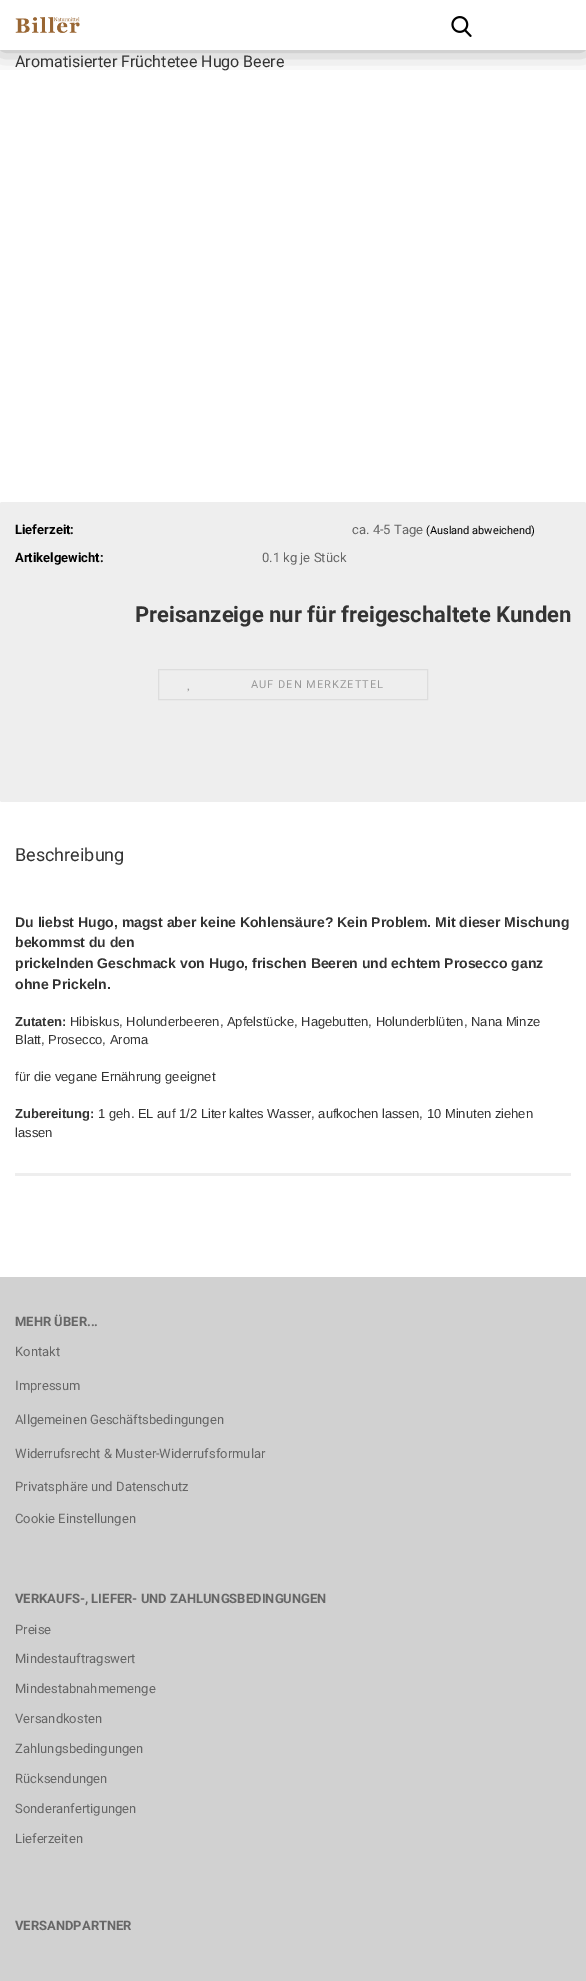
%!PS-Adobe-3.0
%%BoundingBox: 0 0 586 1981
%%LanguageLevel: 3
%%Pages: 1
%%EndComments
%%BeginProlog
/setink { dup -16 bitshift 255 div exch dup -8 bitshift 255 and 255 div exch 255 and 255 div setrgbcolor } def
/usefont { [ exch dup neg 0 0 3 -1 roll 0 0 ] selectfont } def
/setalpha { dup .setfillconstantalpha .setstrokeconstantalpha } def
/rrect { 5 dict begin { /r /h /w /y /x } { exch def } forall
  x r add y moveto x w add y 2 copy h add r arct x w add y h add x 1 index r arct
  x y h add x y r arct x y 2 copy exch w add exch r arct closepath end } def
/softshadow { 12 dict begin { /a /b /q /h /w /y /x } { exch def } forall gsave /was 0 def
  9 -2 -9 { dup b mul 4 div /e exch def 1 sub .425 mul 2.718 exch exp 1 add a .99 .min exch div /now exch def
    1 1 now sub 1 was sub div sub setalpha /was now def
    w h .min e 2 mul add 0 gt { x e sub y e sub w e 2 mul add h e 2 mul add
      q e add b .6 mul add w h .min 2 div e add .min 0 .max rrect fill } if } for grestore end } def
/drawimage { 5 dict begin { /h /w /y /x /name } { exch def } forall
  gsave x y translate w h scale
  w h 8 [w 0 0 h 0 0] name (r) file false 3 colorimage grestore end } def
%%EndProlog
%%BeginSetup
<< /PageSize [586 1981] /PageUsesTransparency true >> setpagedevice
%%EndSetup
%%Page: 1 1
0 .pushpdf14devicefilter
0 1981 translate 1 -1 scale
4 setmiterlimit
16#FFFFFF setink
0 0 586 1981 rectfill
gsave
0 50 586 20 rectclip
16#000000 setink
0 0 586 50 0 12.5 0.35 softshadow
grestore
(img1.raw) 15 17 65 16 drawimage
(img2.raw) 451 16 21 21 drawimage
/Roboto-Regular 16 usefont
16#333333 setink
15 67 moveto (Aromatisierter Früchtetee Hugo Beere) show
16#EEEEEE setink
0 502 586 300 2 rrect fill
/Roboto-Bold 13 usefont
16#000000 setink
15 534 moveto (Lieferzeit:) show
/Roboto-Regular 13 usefont
16#666666 setink
352 534 moveto (ca. 4-5 Tage) show
/Roboto-Regular 11 usefont
16#000000 setink
426 534 moveto (\(Ausland abweichend\)) show
/Roboto-Bold 13 usefont
15 562 moveto (Artikelgewicht:) show
/Roboto-Regular 13 usefont
16#666666 setink
262 562 moveto (0.1 kg je Stück) show
/Roboto-Bold 22 usefont
16#333333 setink
135 622 moveto (Preisanzeige nur für freigeschaltete Kunden) show
16#DDDDDD setink
158.5 669.5 269 30 rectstroke
/Roboto-Regular 11 usefont
16#999999 setink
251 688 moveto 1 0 (AUF DEN MERKZETTEL) ashow
(img3.raw) 187 688 3 4 drawimage
/Roboto-Regular 18 usefont
16#333333 setink
15 861 moveto (Beschreibung) show
16#EEEEEE setink
15 1173 556 3 rectfill
/LiberationSans-Bold 14 usefont
16#333333 setink
[
    [(Du liebst Hugo, magst aber keine Kohlensäure? Kein Problem. Mit dieser Mischung) 15 927]
    [(bekommst du den) 15 947]
    [(prickelnden Geschmack von Hugo, frischen Beeren und echtem Prosecco ganz) 15 968]
    [(ohne Prickeln.) 15 989]
] { aload pop moveto show } forall
/LiberationSans-Bold 13 usefont
15 1026 moveto (Zutaten:) show
/LiberationSans-Regular 13 usefont
[
    [(Hibiskus, Holunderbeeren, Apfelstücke, Hagebutten, Holunderblüten, Nana Minze) 70 1026]
    [(Blatt, Prosecco, Aroma) 15 1044]
    [(für die vegane Ernährung geeignet) 15 1081]
] { aload pop moveto show } forall
/LiberationSans-Bold 13 usefont
15 1118 moveto (Zubereitung:) show
/LiberationSans-Regular 13 usefont
98 1118 moveto (1 geh. EL auf 1/2 Liter kaltes Wasser, aufkochen lassen, 10 Minuten ziehen) show
15 1137 moveto (lassen) show
16#D1D1D1 setink
0 1277 586 704 rectfill
/Roboto-Bold 13 usefont
16#666666 setink
15 1326 moveto (MEHR ÜBER...) show
/Roboto-Regular 13 usefont
[
    [(Kontakt) 15 1356]
    [(Impressum) 15 1390]
    [(Allgemeinen Geschäftsbedingungen) 15 1424]
    [(Widerrufsrecht & Muster-Widerrufsformular) 15 1458]
    [(Privatsphäre und Datenschutz) 15 1491]
    [(Cookie Einstellungen) 15 1523]
] { aload pop moveto show } forall
/Roboto-Bold 13 usefont
15 1603 moveto (VERKAUFS-, LIEFER- UND ZAHLUNGSBEDINGUNGEN) show
/Roboto-Regular 13 usefont
[
    [(Preise) 15 1634]
    [(Mindestauftragswert) 15 1663]
    [(Mindestabnahmemenge) 15 1693]
    [(Versandkosten) 15 1723]
    [(Zahlungsbedingungen) 15 1753]
    [(Rücksendungen) 15 1783]
    [(Sonderanfertigungen) 15 1813]
    [(Lieferzeiten) 15 1843]
] { aload pop moveto show } forall
/Roboto-Bold 13 usefont
15 1930 moveto (VERSANDPARTNER) show
.poppdf14devicefilter showpage
%%EOF
